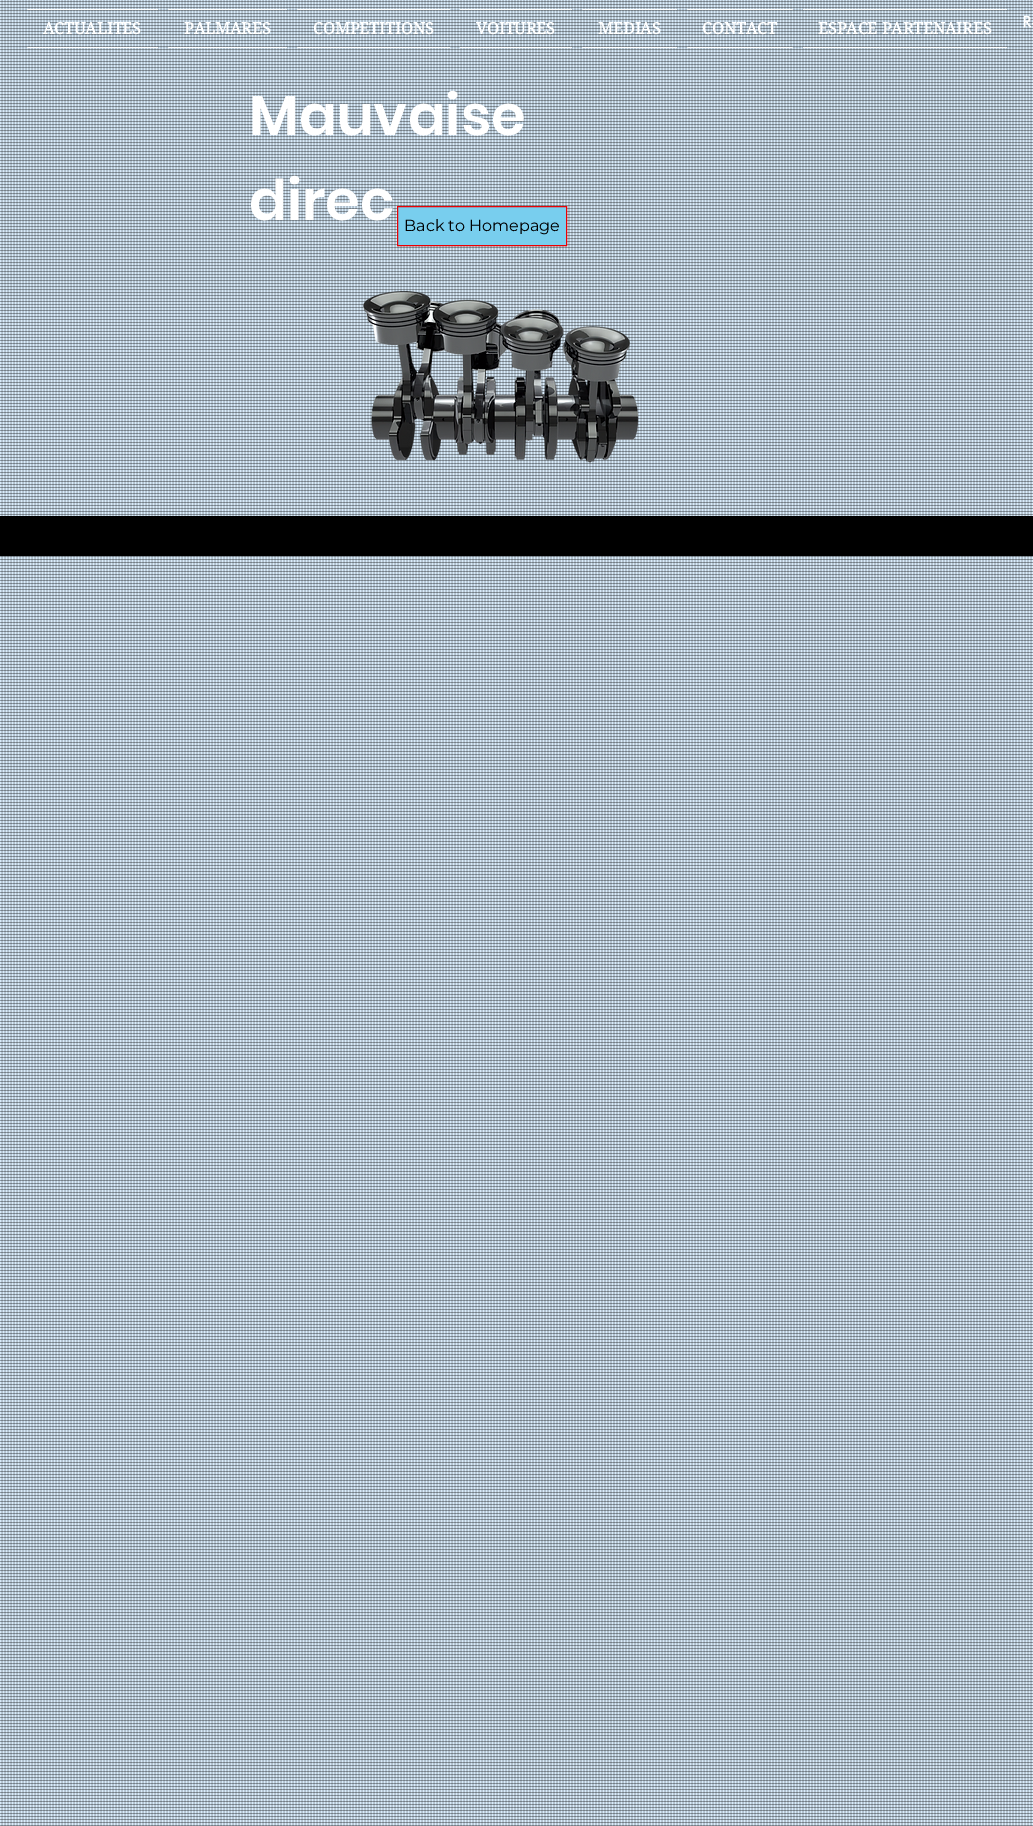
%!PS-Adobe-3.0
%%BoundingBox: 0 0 1033 1826
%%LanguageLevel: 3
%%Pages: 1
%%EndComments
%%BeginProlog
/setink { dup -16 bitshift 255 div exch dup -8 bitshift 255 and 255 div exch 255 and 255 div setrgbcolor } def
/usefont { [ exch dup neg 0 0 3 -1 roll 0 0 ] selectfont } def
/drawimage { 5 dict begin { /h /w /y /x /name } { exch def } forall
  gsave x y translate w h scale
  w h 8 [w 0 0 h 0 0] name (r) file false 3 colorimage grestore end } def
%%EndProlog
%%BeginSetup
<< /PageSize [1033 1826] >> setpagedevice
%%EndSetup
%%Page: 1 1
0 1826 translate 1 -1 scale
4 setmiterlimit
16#D9ECFB setink
0 0 1033 1826 rectfill
(img1.raw) 0 0 1033 1826 drawimage
16#FFFFFF setink
27 9 131 1 rectfill
27 47 131 1 rectfill
/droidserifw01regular-Bold 16 usefont
43 34 moveto (ACTUALITES) show
168 9 119 1 rectfill
168 47 119 1 rectfill
184 34 moveto (PALMARES) show
297 9 153 1 rectfill
297 47 153 1 rectfill
313 34 moveto (COMPETITIONS) show
460 9 112 1 rectfill
460 47 112 1 rectfill
476 34 moveto (VOITURES) show
582 9 95 1 rectfill
582 47 95 1 rectfill
598 34 moveto (MEDIAS) show
687 9 106 1 rectfill
687 47 106 1 rectfill
702 34 moveto (CONTACT) show
803 9 204 1 rectfill
803 47 204 1 rectfill
818 34 moveto (ESPACE PARTENAIRES) show
(img2.raw) 1023 15 10 13 drawimage
/Poppins-SemiBold 56 usefont
249 135 moveto (Mauvaise) show
249 220 moveto (direc) show
16#78CEEE setink
397.5 206.5 moveto 566.5 206.5 lineto 566.5 245.5 lineto 397.5 245.5 lineto closepath gsave fill grestore
16#EA0003 setink
stroke
/Montserrat-Regular 16 usefont
16#000000 setink
404 231 moveto (Back to Homepage) show
(img3.raw) 363 290 276 173 drawimage
0 516 1033 40 rectfill
showpage
%%EOF
